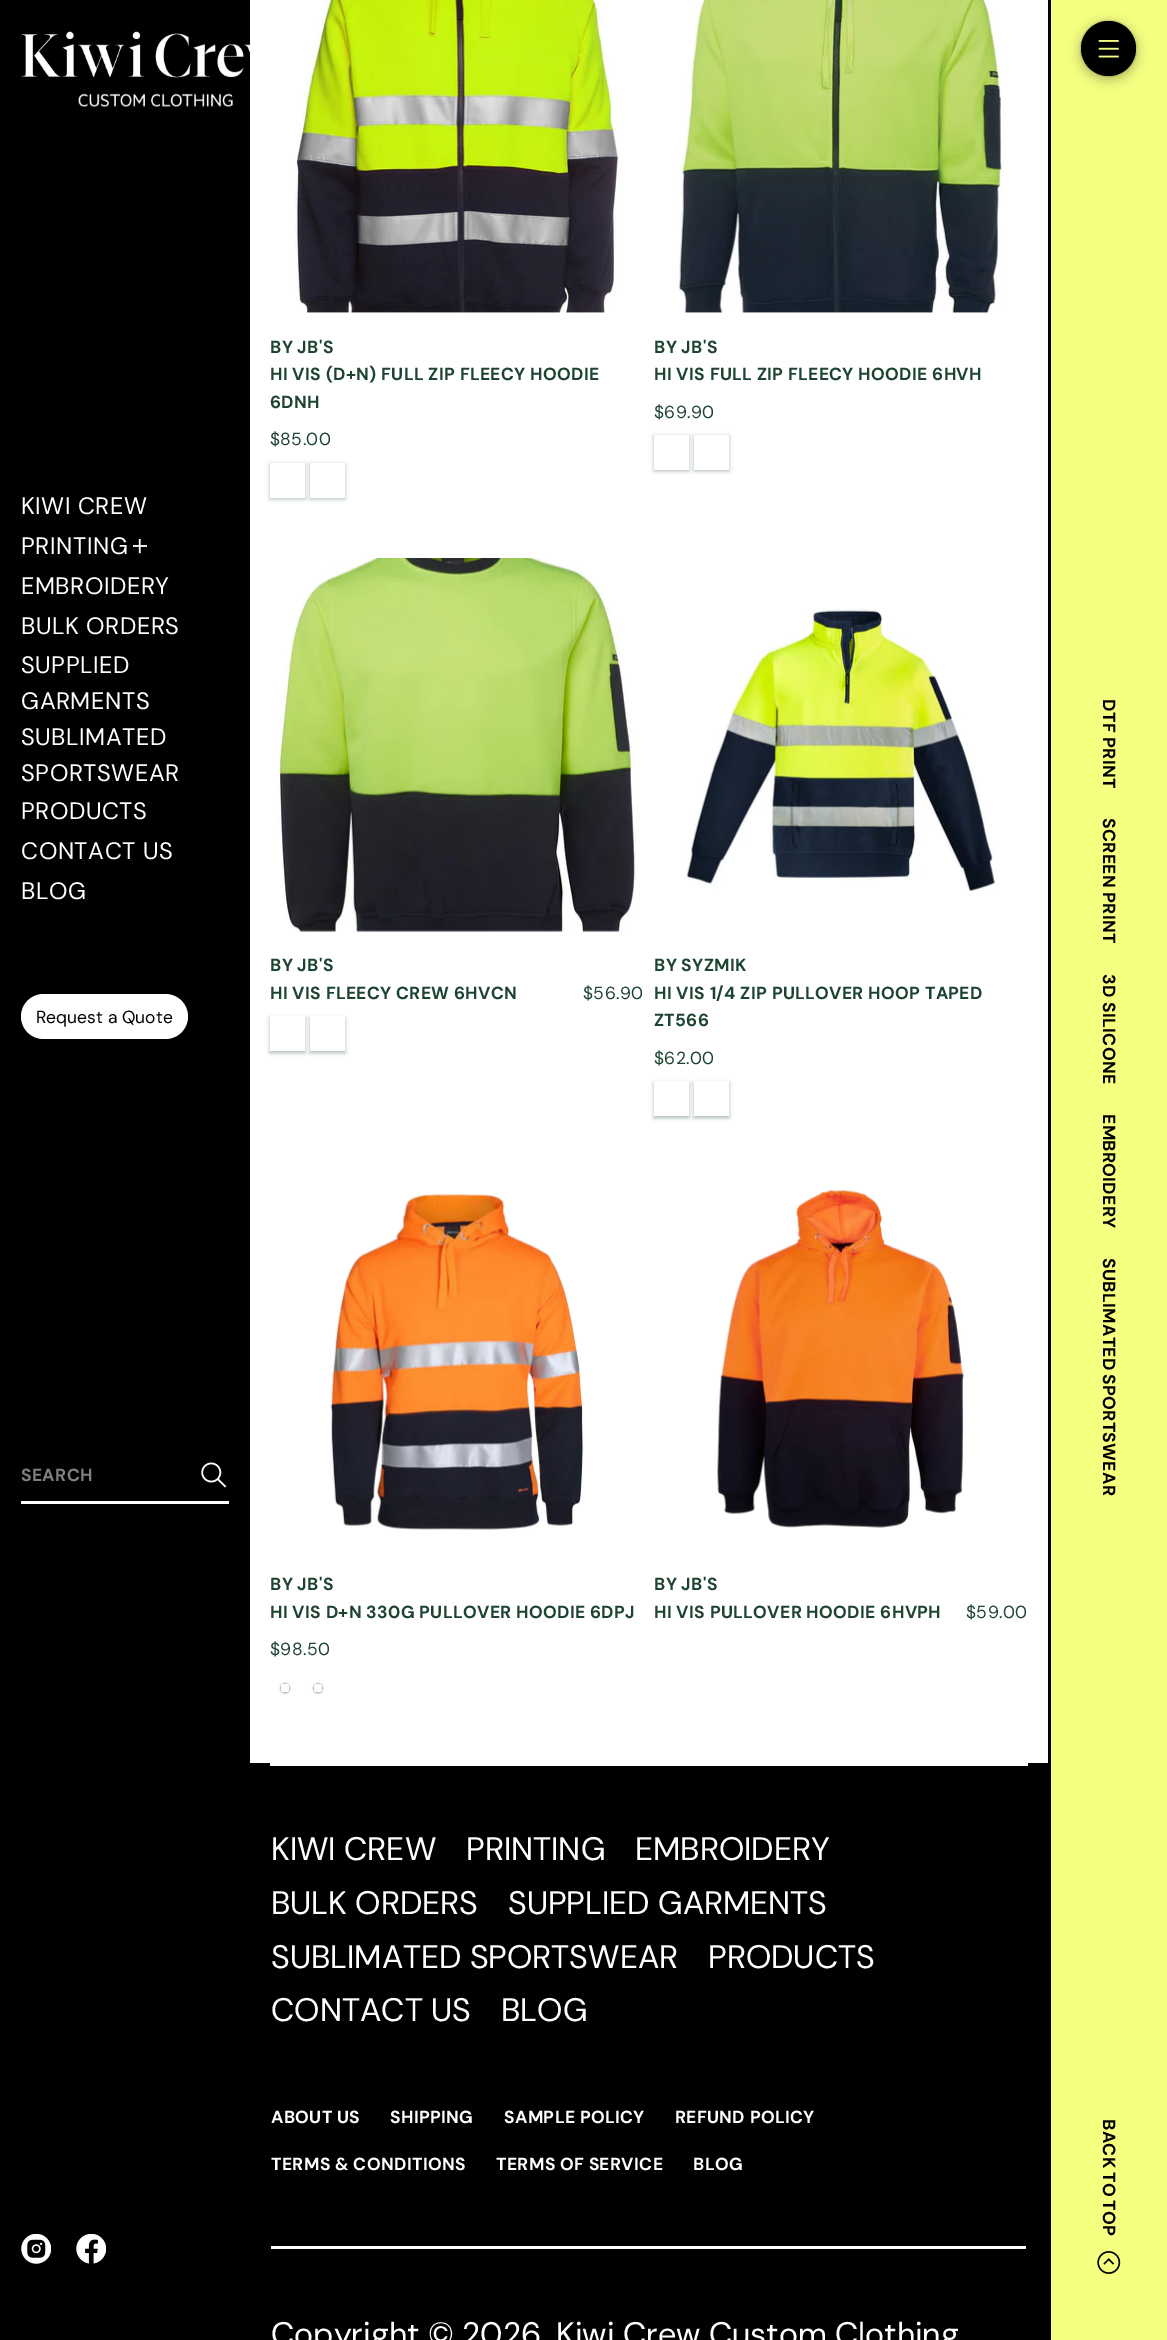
%!PS-Adobe-3.0
%%BoundingBox: 0 0 1167 2340
%%LanguageLevel: 3
%%Pages: 1
%%EndComments
%%BeginProlog
/setink { dup -16 bitshift 255 div exch dup -8 bitshift 255 and 255 div exch 255 and 255 div setrgbcolor } def
/usefont { [ exch dup neg 0 0 3 -1 roll 0 0 ] selectfont } def
/setalpha { dup .setfillconstantalpha .setstrokeconstantalpha } def
/disc { newpath 0 360 arc closepath } def
/rrect { 5 dict begin { /r /h /w /y /x } { exch def } forall
  x r add y moveto x w add y 2 copy h add r arct x w add y h add x 1 index r arct
  x y h add x y r arct x y 2 copy exch w add exch r arct closepath end } def
/softshadow { 12 dict begin { /a /b /q /h /w /y /x } { exch def } forall gsave /was 0 def
  9 -2 -9 { dup b mul 4 div /e exch def 1 sub .425 mul 2.718 exch exp 1 add a .99 .min exch div /now exch def
    1 1 now sub 1 was sub div sub setalpha /was now def
    w h .min e 2 mul add 0 gt { x e sub y e sub w e 2 mul add h e 2 mul add
      q e add b .6 mul add w h .min 2 div e add .min 0 .max rrect fill } if } for grestore end } def
/drawimage { 5 dict begin { /h /w /y /x /name } { exch def } forall
  gsave x y translate w h scale
  w h 8 [w 0 0 h 0 0] name (r) file false 3 colorimage grestore end } def
%%EndProlog
%%BeginSetup
<< /PageSize [1167 2340] /PageUsesTransparency true >> setpagedevice
%%EndSetup
%%Page: 1 1
0 .pushpdf14devicefilter
0 2340 translate 1 -1 scale
4 setmiterlimit
16#FFFFFF setink
0 0 1167 2340 rectfill
16#000000 setink
0 0 250 2340 rectfill
(img1.raw) 21 31 229 76 drawimage
/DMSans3-Regular 23.75 usefont
16#FFFFFF setink
21 514 moveto 0.5 0 (KIWI CREW) ashow
21 554 moveto 0.5 0 (PRINTING) ashow
(img2.raw) 133 539 14 15 drawimage
21 594 moveto 0.5 0 (EMBROIDERY) ashow
21 634 moveto 0.5 0 (BULK ORDERS) ashow
21 673 moveto 0.5 0 (SUPPLIED) ashow
21 709 moveto 0.5 0 (GARMENTS) ashow
21 745 moveto 0.5 0 (SUBLIMATED) ashow
21 781 moveto 0.5 0 (SPORTSWEAR) ashow
21 819 moveto 0.5 0 (PRODUCTS) ashow
21 859 moveto 0.5 0 (CONTACT US) ashow
21 899 moveto 0.5 0 (BLOG) ashow
21 994 167 45 22.5 rrect fill
/DMSans-Regular 17.5 usefont
16#000000 setink
36 1023 moveto (Request a Quote) show
16#FFFFFF setink
21 1501 208 3 rectfill
/DMSans-Bold 17.5 usefont
16#808080 setink
21 1481 moveto 0.35 0 (SEARCH) ashow
(img3.raw) 201 1462 26 26 drawimage
(img4.raw) 21 2234 30 30 drawimage
(img5.raw) 76 2234 30 30 drawimage
(img6.raw) 294 0 327 313 drawimage
16#1D4331 setink
270 353 moveto 0.35 0 (BY JB'S) ashow
270 380 moveto 0.35 0 (HI VIS \(D+N\) FULL ZIP FLEECY HOODIE) ashow
270 408 moveto 0.35 0 (6DNH) ashow
/DMSans-Regular 17.5 usefont
270 445 moveto 0.35 0 ($85.00) ashow
gsave
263 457 moveto 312 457 lineto 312 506 lineto 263 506 lineto closepath 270 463 moveto 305 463 lineto 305 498 lineto 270 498 lineto closepath eoclip newpath
270 464 35 35 0 2 0.35 softshadow
grestore
gsave
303 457 moveto 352 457 lineto 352 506 lineto 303 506 lineto closepath 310 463 moveto 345 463 lineto 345 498 lineto 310 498 lineto closepath eoclip newpath
310 464 35 35 0 2 0.35 softshadow
grestore
(img7.raw) 678 0 327 313 drawimage
/DMSans-Bold 17.5 usefont
654 353 moveto 0.35 0 (BY JB'S) ashow
654 380 moveto 0.35 0 (HI VIS FULL ZIP FLEECY HOODIE 6HVH) ashow
/DMSans-Regular 17.5 usefont
654 418 moveto 0.35 0 ($69.90) ashow
gsave
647 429 moveto 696 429 lineto 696 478 lineto 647 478 lineto closepath 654 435 moveto 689 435 lineto 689 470 lineto 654 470 lineto closepath eoclip newpath
654 436 35 35 0 2 0.35 softshadow
grestore
gsave
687 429 moveto 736 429 lineto 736 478 lineto 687 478 lineto closepath 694 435 moveto 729 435 lineto 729 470 lineto 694 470 lineto closepath eoclip newpath
694 436 35 35 0 2 0.35 softshadow
grestore
(img8.raw) 278 558 359 374 drawimage
/DMSans-Bold 17.5 usefont
270 971 moveto 0.35 0 (BY JB'S) ashow
270 999 moveto 0.35 0 (HI VIS FLEECY CREW 6HVCN) ashow
/DMSans-Regular 17.5 usefont
583 999 moveto 0.35 0 ($56.90) ashow
gsave
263 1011 moveto 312 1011 lineto 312 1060 lineto 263 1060 lineto closepath 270 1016 moveto 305 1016 lineto 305 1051 lineto 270 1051 lineto closepath eoclip newpath
270 1018 35 35 0 2 0.35 softshadow
grestore
gsave
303 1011 moveto 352 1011 lineto 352 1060 lineto 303 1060 lineto closepath 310 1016 moveto 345 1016 lineto 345 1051 lineto 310 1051 lineto closepath eoclip newpath
310 1018 35 35 0 2 0.35 softshadow
grestore
(img9.raw) 686 608 311 283 drawimage
/DMSans-Bold 17.5 usefont
654 971 moveto 0.35 0 (BY SYZMIK) ashow
654 999 moveto 0.35 0 (HI VIS 1/4 ZIP PULLOVER HOOP TAPED) ashow
654 1026 moveto 0.35 0 (ZT566) ashow
/DMSans-Regular 17.5 usefont
654 1064 moveto 0.35 0 ($62.00) ashow
gsave
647 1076 moveto 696 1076 lineto 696 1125 lineto 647 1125 lineto closepath 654 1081 moveto 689 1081 lineto 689 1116 lineto 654 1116 lineto closepath eoclip newpath
654 1083 35 35 0 2 0.35 softshadow
grestore
gsave
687 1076 moveto 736 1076 lineto 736 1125 lineto 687 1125 lineto closepath 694 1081 moveto 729 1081 lineto 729 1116 lineto 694 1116 lineto closepath eoclip newpath
694 1083 35 35 0 2 0.35 softshadow
grestore
(img10.raw) 330 1193 253 337 drawimage
/DMSans-Bold 17.5 usefont
270 1590 moveto 0.35 0 (BY JB'S) ashow
270 1618 moveto 0.35 0 (HI VIS D+N 330G PULLOVER HOODIE 6DPJ) ashow
/DMSans-Regular 17.5 usefont
270 1655 moveto 0.35 0 ($98.50) ashow
gsave
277 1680 moveto 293 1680 lineto 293 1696 lineto 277 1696 lineto closepath 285 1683 moveto 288 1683 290 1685 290 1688 curveto 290 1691 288 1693 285 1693 curveto 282 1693 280 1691 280 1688 curveto 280 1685 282 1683 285 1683 curveto closepath eoclip newpath
16#000000 setink
280 1683 10 10 5 0.5 0.25 softshadow
grestore
gsave
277 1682 moveto 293 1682 lineto 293 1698 lineto 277 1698 lineto closepath 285 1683 moveto 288 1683 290 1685 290 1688 curveto 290 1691 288 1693 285 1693 curveto 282 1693 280 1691 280 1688 curveto 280 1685 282 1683 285 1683 curveto closepath eoclip newpath
16#000000 setink
280 1685 10 10 5 0.5 0.05 softshadow
grestore
gsave
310 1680 moveto 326 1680 lineto 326 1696 lineto 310 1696 lineto closepath 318 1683 moveto 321 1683 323 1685 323 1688 curveto 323 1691 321 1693 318 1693 curveto 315 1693 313 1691 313 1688 curveto 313 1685 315 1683 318 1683 curveto closepath eoclip newpath
16#000000 setink
313 1683 10 10 5 0.5 0.25 softshadow
grestore
gsave
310 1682 moveto 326 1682 lineto 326 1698 lineto 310 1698 lineto closepath 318 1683 moveto 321 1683 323 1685 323 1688 curveto 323 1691 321 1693 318 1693 curveto 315 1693 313 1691 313 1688 curveto 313 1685 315 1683 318 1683 curveto closepath eoclip newpath
16#000000 setink
313 1685 10 10 5 0.5 0.05 softshadow
grestore
(img11.raw) 717 1189 247 339 drawimage
/DMSans-Bold 17.5 usefont
654 1590 moveto 0.35 0 (BY JB'S) ashow
654 1618 moveto 0.35 0 (HI VIS PULLOVER HOODIE 6HVPH) ashow
/DMSans-Regular 17.5 usefont
966 1618 moveto 0.35 0 ($59.00) ashow
16#000000 setink
250 1763 798 577 rectfill
16#FFFFFF setink
270 1763 758 3 rectfill
/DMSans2-Regular 32.5 usefont
[
    [(KIWI CREW) 271 1860]
    [(PRINTING) 466 1860]
    [(EMBROIDERY) 635 1860]
    [(BULK ORDERS) 271 1914]
    [(SUPPLIED GARMENTS) 508 1914]
    [(SUBLIMATED SPORTSWEAR) 271 1968]
    [(PRODUCTS) 708 1968]
    [(CONTACT US) 271 2021]
    [(BLOG) 501 2021]
] { aload pop moveto show } forall
/DMSans-Bold 17.5 usefont
271 2123 moveto 0.35 0 (ABOUT US) ashow
390 2123 moveto 0.35 0 (SHIPPING) ashow
504 2123 moveto 0.35 0 (SAMPLE POLICY) ashow
675 2123 moveto 0.35 0 (REFUND POLICY) ashow
271 2170 moveto 0.35 0 (TERMS & CONDITIONS) ashow
496 2170 moveto 0.35 0 (TERMS OF SERVICE) ashow
693 2170 moveto 0.35 0 (BLOG) ashow
271 2246 755 3 rectfill
/DMSans2-Regular 32.5 usefont
271 2345 moveto (Copyright © 2026) show
556 2345 moveto (Kiwi Crew Custom Clothing) show
16#F5FF80 setink
1051 0 116 2340 rectfill
16#000000 setink
1048 0 3 2340 rectfill
1081 24 55 55 27.5 6 0.15 softshadow
1081 21 55 55 27.5 1 0.15 softshadow
1081 24 55 55 27.5 6 0.15 softshadow
1081 21 55 55 27.5 1 0.15 softshadow
1108.5 48.5 27.5 disc fill
(img12.raw) 1098 40 21 18 drawimage
/DMSans-Bold 17.5 usefont
gsave 1103 699 translate 90 rotate 0 0 moveto 0.35 0 (DTF PRINT) ashow grestore
gsave 1103 818 translate 90 rotate 0 0 moveto 0.35 0 (SCREEN PRINT) ashow grestore
gsave 1103 974 translate 90 rotate 0 0 moveto 0.35 0 (3D SILICONE) ashow grestore
gsave 1103 1114 translate 90 rotate 0 0 moveto 0.35 0 (EMBROIDERY) ashow grestore
gsave 1103 1258 translate 90 rotate 0 0 moveto -1 0 32 0.35 0 (SUBLIMATED SPORTSWEAR) awidthshow grestore
gsave 1103 2119 translate 90 rotate 0 0 moveto -1 0 32 0.35 0 (BACK TO TOP) awidthshow grestore
(img13.raw) 1097 2251 24 23 drawimage
.poppdf14devicefilter showpage
%%EOF
